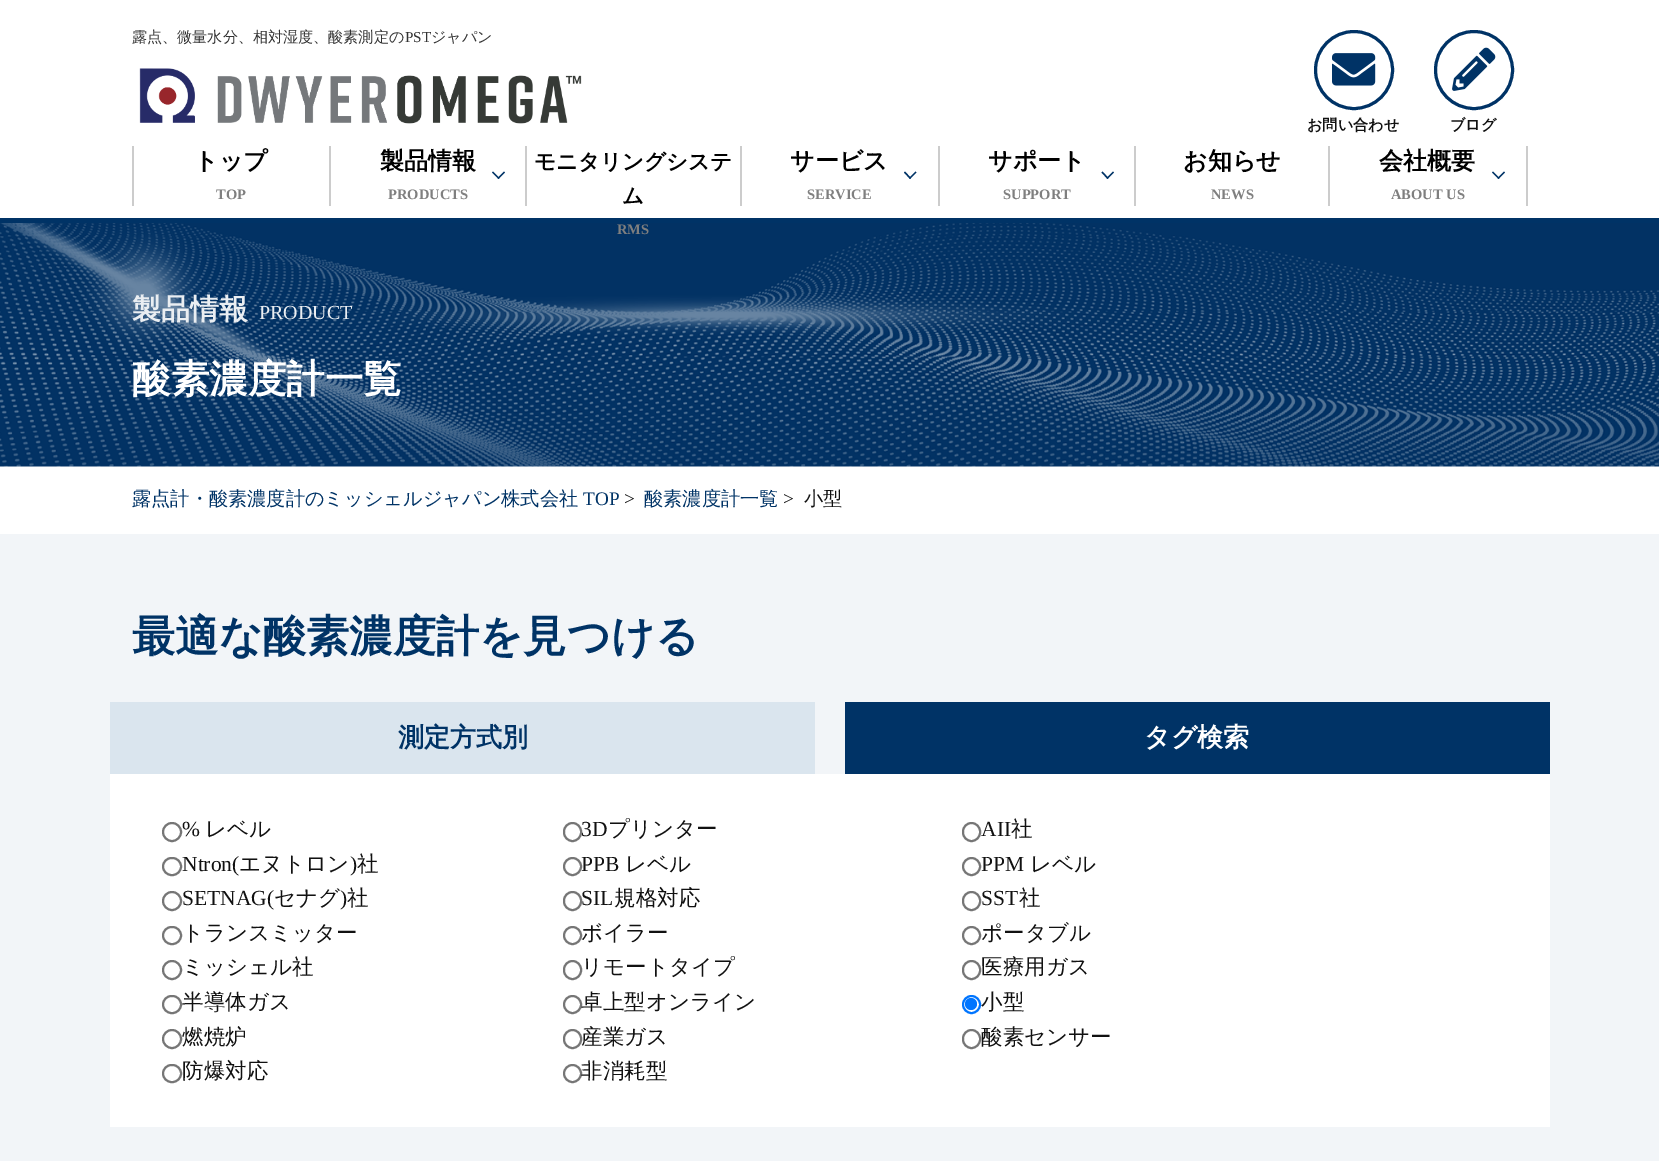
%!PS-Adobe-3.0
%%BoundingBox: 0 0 1659 1161
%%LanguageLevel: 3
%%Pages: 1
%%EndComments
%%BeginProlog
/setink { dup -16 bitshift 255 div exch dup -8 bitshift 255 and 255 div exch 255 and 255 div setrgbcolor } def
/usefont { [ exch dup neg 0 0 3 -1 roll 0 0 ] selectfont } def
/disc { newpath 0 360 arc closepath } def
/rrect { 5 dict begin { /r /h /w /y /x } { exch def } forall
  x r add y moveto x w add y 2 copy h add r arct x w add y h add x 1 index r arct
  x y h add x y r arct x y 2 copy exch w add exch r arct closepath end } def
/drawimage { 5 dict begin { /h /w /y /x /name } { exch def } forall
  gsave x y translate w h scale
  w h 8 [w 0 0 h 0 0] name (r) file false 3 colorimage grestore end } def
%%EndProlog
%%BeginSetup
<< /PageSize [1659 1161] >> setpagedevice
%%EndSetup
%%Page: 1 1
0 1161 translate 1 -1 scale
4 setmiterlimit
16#FFFFFF setink
0 0 1659 1161 rectfill
/WenQuanYiZenHei-Medium 15.1 usefont
16#333333 setink
132 42 moveto (露点、微量水分、相対湿度、酸素測定の) show
/LiberationSerif-Regular 15.1 usefont
405 42 moveto (PST) show
/WenQuanYiZenHei-Medium 15.1 usefont
431 42 moveto (ジャパン) show
(img1.raw) 139 68 443 56 drawimage
16#003366 setink
3 setlinewidth
1354 70 38.5 disc stroke
(img2.raw) 1332 53 44 33 drawimage
/WenQuanYiZenHei-Bold 15.1 usefont
16#111111 setink
1307 130 moveto (お問い合わせ) show
16#003366 setink
1474 70 38.5 disc stroke
(img3.raw) 1452 47 44 44 drawimage
16#111111 setink
1450 130 moveto (ブログ) show
16#CCCCCC setink
329 146 2 60 rectfill
132 146 2 60 rectfill
/WenQuanYiZenHei-Bold 24 usefont
16#000000 setink
194 169 moveto (トップ) show
/LiberationSerif-Bold 14.5 usefont
16#7F7F7F setink
216 199 moveto (TOP) show
16#CCCCCC setink
525 146 2 60 rectfill
/WenQuanYiZenHei-Bold 24 usefont
16#000000 setink
380 169 moveto (製品情報) show
16#003366 setink
504 171.5 moveto 505 172.5 lineto 498.5 179 lineto 497.5 178 lineto closepath fill
493 171.5 moveto 499.5 178 lineto 498.5 179 lineto 492 172.5 lineto closepath fill
/LiberationSerif-Bold 14.5 usefont
16#7F7F7F setink
388 199 moveto (PRODUCTS) show
16#CCCCCC setink
740 146 2 60 rectfill
/WenQuanYiZenHei-Bold 21.5 usefont
16#000000 setink
534 169 moveto (モニタリングシステ) show
622 203 moveto (ム) show
(img4.raw) 0 223 1659 244 drawimage
/LiberationSerif-Bold 14.5 usefont
16#7F7F7F setink
617 234 moveto (RMS) show
16#CCCCCC setink
938 146 2 60 rectfill
/WenQuanYiZenHei-Bold 24 usefont
16#000000 setink
790 169 moveto (サービス) show
16#003366 setink
915.5 171.5 moveto 916.5 172.5 lineto 910 179 lineto 909 178 lineto closepath fill
905 171.5 moveto 911 178 lineto 910 179 lineto 904 172.5 lineto closepath fill
/LiberationSerif-Bold 14.5 usefont
16#7F7F7F setink
807 199 moveto (SERVICE) show
16#CCCCCC setink
1134 146 2 60 rectfill
/WenQuanYiZenHei-Bold 24 usefont
16#000000 setink
988 169 moveto (サポート) show
16#003366 setink
1113 171.5 moveto 1114 172.5 lineto 1107.5 179 lineto 1106.5 178 lineto closepath fill
1102.5 171.5 moveto 1108.5 178 lineto 1107.5 179 lineto 1101.5 172.5 lineto closepath fill
/LiberationSerif-Bold 14.5 usefont
16#7F7F7F setink
1003 199 moveto (SUPPORT) show
16#CCCCCC setink
1328 146 2 60 rectfill
/WenQuanYiZenHei-Bold 24 usefont
16#000000 setink
1183 169 moveto (お知らせ) show
/LiberationSerif-Bold 14.5 usefont
16#7F7F7F setink
1211 199 moveto (NEWS) show
16#CCCCCC setink
1526 146 2 60 rectfill
/WenQuanYiZenHei-Bold 24 usefont
16#000000 setink
1379 169 moveto (会社概要) show
16#003366 setink
1504 171.5 moveto 1505 172.5 lineto 1498.5 179 lineto 1497.5 178 lineto closepath fill
1493 171.5 moveto 1499.5 178 lineto 1498.5 179 lineto 1492 172.5 lineto closepath fill
/LiberationSerif-Bold 14.5 usefont
16#7F7F7F setink
1391 199 moveto (ABOUT US) show
16#003366 setink
0 218 1659 5 rectfill
/WenQuanYiZenHei-Bold 29 usefont
16#EAEEF2 setink
132 319 moveto (製品情報) show
/LiberationSerif-Regular 20 usefont
259 319 moveto (PRODUCT) show
/WenQuanYiZenHei-Bold 38.5 usefont
16#FFFFFF setink
132 392 moveto (酸素濃度計一覧) show
/WenQuanYiZenHei-Medium 19.2 usefont
16#003366 setink
132 505 moveto (露点計・酸素濃度計のミッシェルジャパン株式会社) show
/LiberationSerif-Regular 19.2 usefont
583 505 moveto (TOP) show
16#111111 setink
624 505 moveto (>) show
/WenQuanYiZenHei-Medium 19.2 usefont
16#003366 setink
644 505 moveto (酸素濃度計一覧) show
/LiberationSerif-Regular 19.2 usefont
16#111111 setink
783 505 moveto (>) show
/WenQuanYiZenHei-Medium 19.2 usefont
804 505 moveto (小型) show
16#F2F5F8 setink
0 534 1659 627 rectfill
/WenQuanYiZenHei-Bold 43.25 usefont
16#003366 setink
132 651 moveto (最適な酸素濃度計を見つける) show
16#DAE5EE setink
110 702 705 72 rectfill
/WenQuanYiZenHei-Bold 26 usefont
16#003366 setink
398 746 moveto (測定方式別) show
845 702 705 72 rectfill
16#FFFFFF setink
1144 746 moveto (タグ検索) show
110 774 1440 353 rectfill
16#767676 setink
2 setlinewidth
172 832 9 disc stroke
/LiberationSerif-Regular 21.5 usefont
16#111111 setink
182 836 moveto (%) show
/WenQuanYiZenHei-Medium 21.5 usefont
205 836 moveto (レベル) show
16#767676 setink
564 823 17 18 8.5 rrect stroke
/LiberationSerif-Regular 21.5 usefont
16#111111 setink
581 836 moveto (3D) show
/WenQuanYiZenHei-Medium 21.5 usefont
608 836 moveto (プリンター) show
16#767676 setink
963 823 17 18 8.5 rrect stroke
/LiberationSerif-Regular 21.5 usefont
16#111111 setink
981 836 moveto (AII) show
/WenQuanYiZenHei-Medium 21.5 usefont
1011 836 moveto (社) show
16#767676 setink
163 858 18 17 8.5 rrect stroke
/LiberationSerif-Regular 21.5 usefont
16#111111 setink
182 871 moveto (Ntron\() show
/WenQuanYiZenHei-Medium 21.5 usefont
239 871 moveto (エヌトロン) show
/LiberationSerif-Regular 21.5 usefont
350 871 moveto (\)) show
/WenQuanYiZenHei-Medium 21.5 usefont
357 871 moveto (社) show
16#767676 setink
572.5 866.5 8.5 disc stroke
/LiberationSerif-Regular 21.5 usefont
16#111111 setink
581 871 moveto (PPB) show
/WenQuanYiZenHei-Medium 21.5 usefont
625 871 moveto (レベル) show
16#767676 setink
971.5 866.5 8.5 disc stroke
/LiberationSerif-Regular 21.5 usefont
16#111111 setink
981 871 moveto (PPM) show
/WenQuanYiZenHei-Medium 21.5 usefont
1030 871 moveto (レベル) show
16#767676 setink
172 901 9 disc stroke
/LiberationSerif-Regular 21.5 usefont
16#111111 setink
182 905 moveto (SETNAG\() show
/WenQuanYiZenHei-Medium 21.5 usefont
274 905 moveto (セナグ) show
/LiberationSerif-Regular 21.5 usefont
340 905 moveto (\)) show
/WenQuanYiZenHei-Medium 21.5 usefont
347 905 moveto (社) show
16#767676 setink
564 892 17 18 8.5 rrect stroke
/LiberationSerif-Regular 21.5 usefont
16#111111 setink
581 905 moveto (SIL) show
/WenQuanYiZenHei-Medium 21.5 usefont
614 905 moveto (規格対応) show
16#767676 setink
963 892 17 18 8.5 rrect stroke
/LiberationSerif-Regular 21.5 usefont
16#111111 setink
981 905 moveto (SST) show
/WenQuanYiZenHei-Medium 21.5 usefont
1019 905 moveto (社) show
16#767676 setink
163 927 18 17 8.5 rrect stroke
16#111111 setink
182 940 moveto (トランスミッター) show
16#767676 setink
572.5 935.5 8.5 disc stroke
16#111111 setink
581 940 moveto (ボイラー) show
16#767676 setink
971.5 935.5 8.5 disc stroke
16#111111 setink
981 940 moveto (ポータブル) show
16#767676 setink
172 970 9 disc stroke
16#111111 setink
182 974 moveto (ミッシェル社) show
16#767676 setink
564 961 17 18 8.5 rrect stroke
16#111111 setink
581 974 moveto (リモートタイプ) show
16#767676 setink
963 961 17 18 8.5 rrect stroke
16#111111 setink
981 974 moveto (医療用ガス) show
16#767676 setink
163 996 18 17 8.5 rrect stroke
16#111111 setink
182 1009 moveto (半導体ガス) show
16#767676 setink
572.5 1004.5 8.5 disc stroke
16#111111 setink
581 1009 moveto (卓上型オンライン) show
16#0075FF setink
971.5 1004.5 8.5 disc stroke
971 1004 6 disc fill
16#111111 setink
981 1009 moveto (小型) show
16#767676 setink
172 1039 9 disc stroke
16#111111 setink
182 1044 moveto (燃焼炉) show
16#767676 setink
564 1030 17 18 8.5 rrect stroke
16#111111 setink
581 1044 moveto (産業ガス) show
16#767676 setink
963 1030 17 18 8.5 rrect stroke
16#111111 setink
981 1044 moveto (酸素センサー) show
16#767676 setink
163 1065 18 17 8.5 rrect stroke
16#111111 setink
182 1078 moveto (防爆対応) show
16#767676 setink
572.5 1073.5 8.5 disc stroke
16#111111 setink
581 1078 moveto (非消耗型) show
showpage
%%EOF
